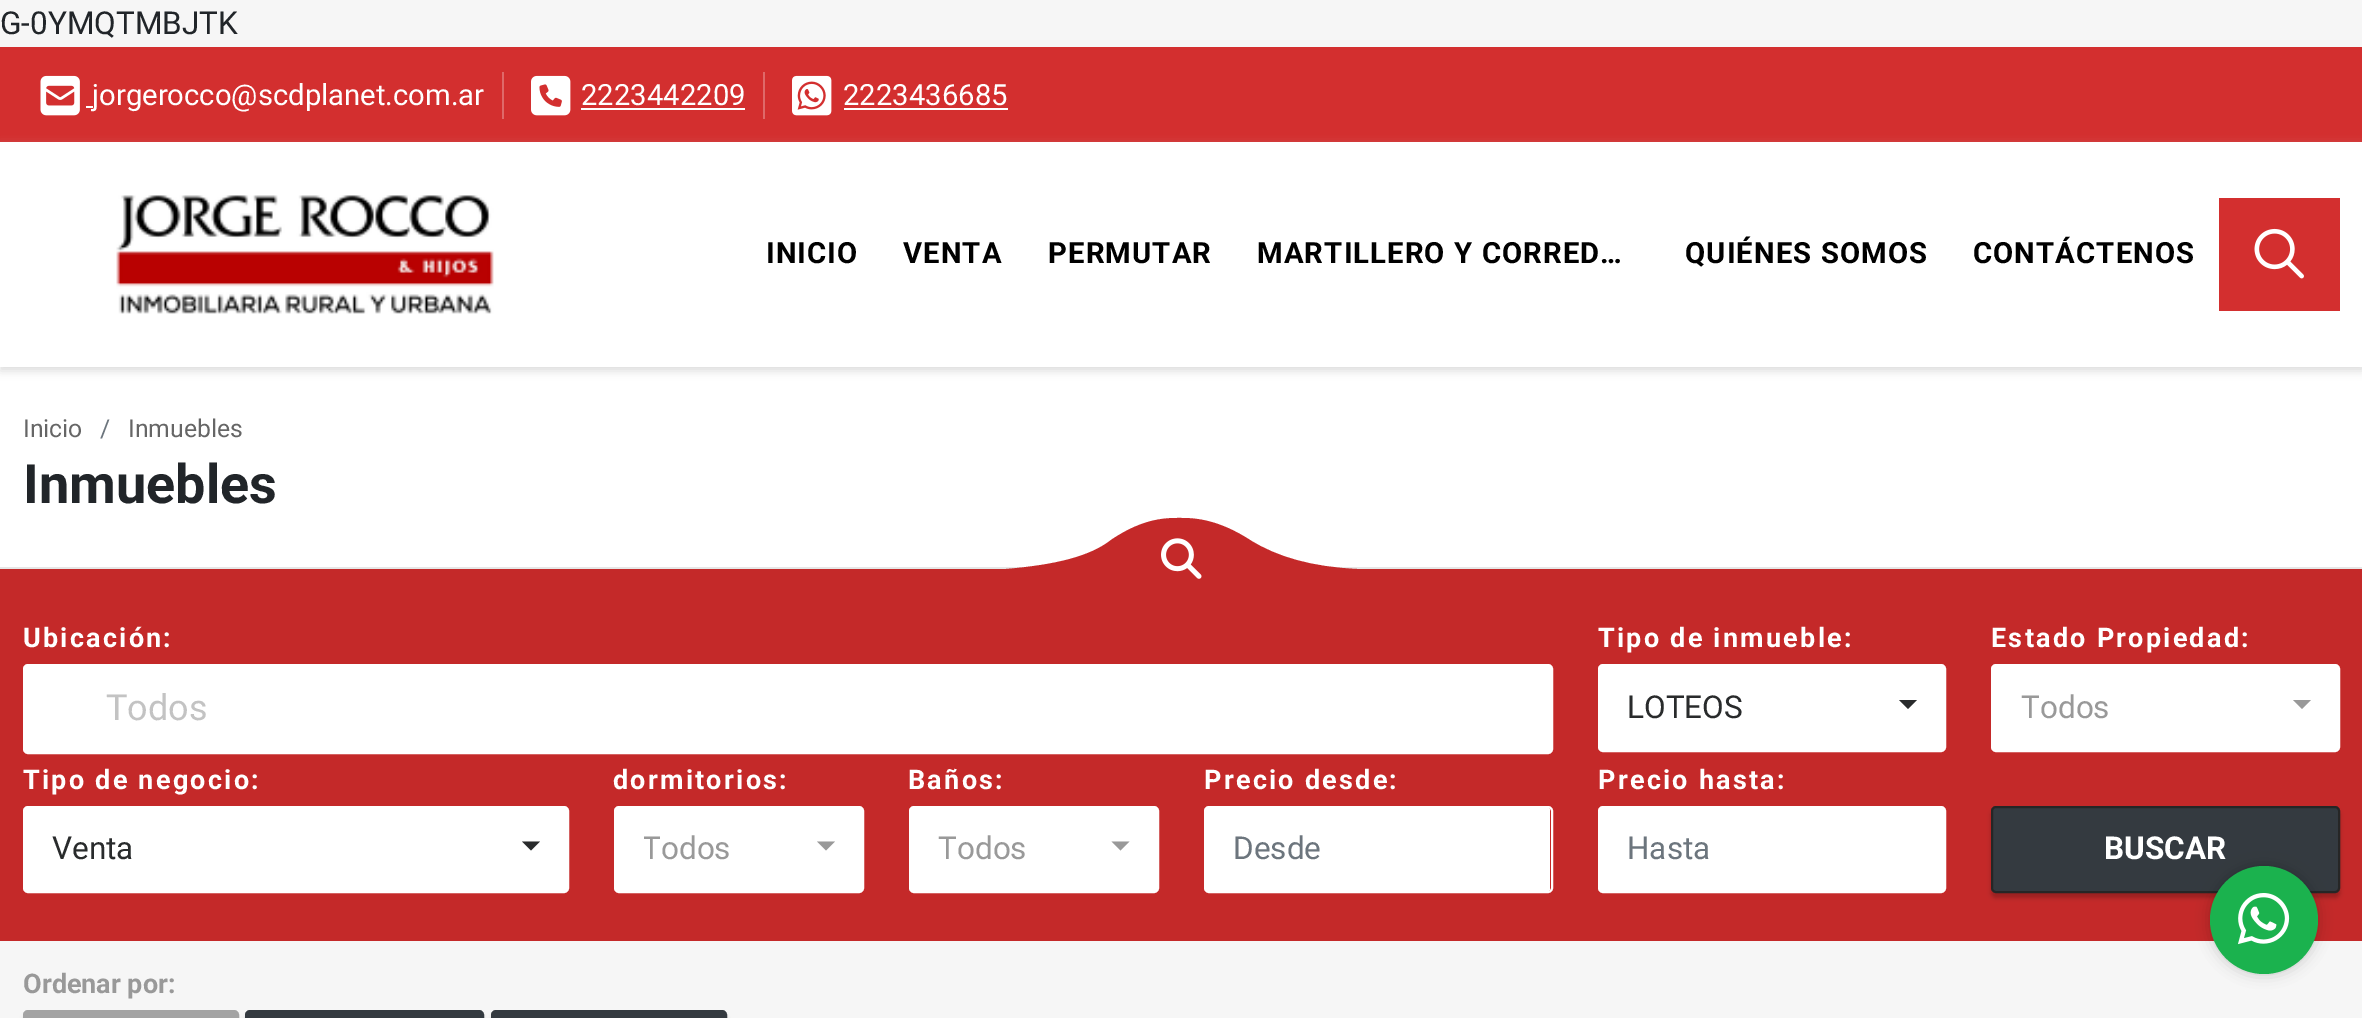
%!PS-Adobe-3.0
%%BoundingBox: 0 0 2362 1018
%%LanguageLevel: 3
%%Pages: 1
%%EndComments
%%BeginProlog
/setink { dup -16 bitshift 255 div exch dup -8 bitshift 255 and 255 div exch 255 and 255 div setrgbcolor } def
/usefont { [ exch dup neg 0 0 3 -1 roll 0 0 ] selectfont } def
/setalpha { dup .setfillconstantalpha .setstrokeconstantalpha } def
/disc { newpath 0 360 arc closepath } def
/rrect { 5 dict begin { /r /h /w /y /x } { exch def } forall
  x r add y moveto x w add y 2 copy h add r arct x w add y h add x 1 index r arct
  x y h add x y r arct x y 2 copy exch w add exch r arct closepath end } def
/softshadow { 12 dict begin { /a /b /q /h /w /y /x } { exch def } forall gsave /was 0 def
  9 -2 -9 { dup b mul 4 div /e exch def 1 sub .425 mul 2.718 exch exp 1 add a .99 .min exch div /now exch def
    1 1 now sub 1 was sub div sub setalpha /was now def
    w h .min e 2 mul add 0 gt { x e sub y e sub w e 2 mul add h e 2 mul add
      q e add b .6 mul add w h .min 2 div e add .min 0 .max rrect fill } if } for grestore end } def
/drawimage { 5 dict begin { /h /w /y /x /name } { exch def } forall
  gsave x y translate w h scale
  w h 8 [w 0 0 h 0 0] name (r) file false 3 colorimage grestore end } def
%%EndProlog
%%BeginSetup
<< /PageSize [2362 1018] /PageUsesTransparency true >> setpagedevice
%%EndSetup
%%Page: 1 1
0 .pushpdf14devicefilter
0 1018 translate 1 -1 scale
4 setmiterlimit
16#F6F6F6 setink
0 0 2362 1018 rectfill
/Roboto-Regular 31.5 usefont
16#212529 setink
0 34 moveto (G-0YMQTMBJTK) show
16#D32F2F setink
0 47 2362 95 rectfill
16#DF6969 setink
502 72 2 47 rectfill
(img1.raw) 40 75 40 41 drawimage
16#FFFFFF setink
86 106 7 2 rectfill
/Roboto-Regular 29.25 usefont
92 105 moveto (jorgerocco@scdplanet.com.ar) show
16#DF6969 setink
763 72 2 47 rectfill
(img2.raw) 531 75 40 41 drawimage
16#FFFFFF setink
581 105 moveto (2223442209) show
581 108 164 2 rectfill
(img3.raw) 792 75 40 41 drawimage
843 105 moveto (2223436685) show
844 108 164 2 rectfill
0 367 2362 200 rectfill
16#BABABA setink
0 146 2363 225 0 4.5 0.5 softshadow
16#FFFFFF setink
0 142 2362 225 rectfill
(img4.raw) 116 195 378 119 drawimage
/Roboto-Bold 29.25 usefont
16#000000 setink
766 263 moveto 1.1 0 (INICIO) ashow
903 263 moveto 1.1 0 (VENTA) ashow
1048 263 moveto 1.1 0 (PERMUTAR) ashow
1257 263 moveto 1.1 0 (MARTILLERO Y CORRED…) ashow
1685 263 moveto 1.1 0 (QUIÉNES SOMOS) ashow
1973 263 moveto 1.1 0 (CONTÁCTENOS) ashow
16#D32F2F setink
2219 198 121 113 rectfill
(img5.raw) 2254 228 50 51 drawimage
16#E6E6E6 setink
0 567 2362 2 rectfill
/Roboto-Regular 24.75 usefont
16#666666 setink
23 437 moveto (Inicio) show
16#6C757D setink
100 437 moveto (/) show
16#666666 setink
128 437 moveto (Inmuebles) show
/Roboto-Bold 54 usefont
16#212529 setink
23 503 moveto (Inmuebles) show
16#C42929 setink
1182 518 moveto 1196 518 1219 520 1250 540 curveto 1277 557 1312 567 1357 569 curveto 1006 569 lineto 1056 565 1091 556 1111 540 curveto 1145 517 1168 518 1182 518 curveto closepath eofill
0 569 2362 372 rectfill
(img6.raw) 1161 538 41 41 drawimage
/Roboto-Bold 27 usefont
16#FFFFFF setink
23 647 moveto 2.25 0 (Ubicación:) ashow
24 665 1528 88 4 rrect gsave fill grestore
2 setlinewidth
stroke
/Roboto-Regular 36 usefont
16#C3C3C3 setink
106 720 moveto (Todos) show
/Roboto-Bold 27 usefont
16#FFFFFF setink
1598 647 moveto 2.25 0 (Tipo de inmueble:) ashow
1599 665 346 86 4 rrect gsave fill grestore
stroke
/Roboto-Regular 31.5 usefont
16#292B2C setink
1627 718 moveto (LOTEOS) show
1899 700 moveto 1917 700 lineto 1908 709 lineto closepath fill
/Roboto-Bold 27 usefont
16#FFFFFF setink
1991 647 moveto 2.25 0 (Estado Propiedad:) ashow
1992 665 347 86 4 rrect gsave fill grestore
stroke
/Roboto-Regular 31.5 usefont
16#999999 setink
2021 718 moveto (Todos) show
2293 700 moveto 2311 700 lineto 2302 709 lineto closepath fill
/Roboto-Bold 27 usefont
16#FFFFFF setink
23 789 moveto 2.25 0 (Tipo de negocio:) ashow
24 807 544 85 4 rrect gsave fill grestore
stroke
/Roboto-Regular 31.5 usefont
16#292B2C setink
52 859 moveto (Venta) show
522 841.5 moveto 540 841.5 lineto 531 850.5 lineto closepath fill
/Roboto-Bold 27 usefont
16#FFFFFF setink
613 789 moveto 2.25 0 (dormitorios:) ashow
615 807 248 85 4 rrect gsave fill grestore
stroke
gsave
644 826 164 47 rectclip
/Roboto-Regular 31.5 usefont
16#999999 setink
642 859 moveto (Todos) show
grestore
16#999999 setink
817 841.5 moveto 835 841.5 lineto 826 850.5 lineto closepath fill
16#FFFFFF setink
908 789 moveto 2.25 0 (Baños:) ashow
910 807 248 85 4 rrect gsave fill grestore
stroke
/Roboto-Regular 31.5 usefont
16#999999 setink
938 859 moveto (Todos) show
1111.5 841.5 moveto 1129.5 841.5 lineto 1120.5 850.5 lineto closepath fill
/Roboto-Bold 27 usefont
16#FFFFFF setink
1204 789 moveto 2.25 0 (Precio desde:) ashow
1206 808 344 83 2 rrect fill
1205 807 347 85 4 rrect stroke
/Roboto-Regular 31.5 usefont
16#6C757D setink
1233 859 moveto (Desde) show
/Roboto-Bold 27 usefont
16#FFFFFF setink
1598 789 moveto 2.25 0 (Precio hasta:) ashow
1600 808 344 83 2 rrect fill
1599 807 346 85 4 rrect stroke
/Roboto-Regular 31.5 usefont
16#6C757D setink
1627 859 moveto (Hasta) show
16#000000 setink
1991 810 349 88 5 2 0.2 softshadow
16#343A40 setink
1992 807 347 85 4 rrect gsave fill grestore
16#262626 setink
stroke
/Roboto-Bold 31.5 usefont
16#FFFFFF setink
2104 859 moveto (BUSCAR) show
/Roboto-Bold 27 usefont
16#999999 setink
23 993 moveto (Ordenar por:) show
16#565656 setink
23 1015 216 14 5 2 0.2 softshadow
16#A3A3A3 setink
24 1011 214 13 4 rrect gsave fill grestore
stroke
16#000000 setink
245 1015 239 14 5 2 0.2 softshadow
16#343A40 setink
246 1011 237 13 4 rrect gsave fill grestore
stroke
16#000000 setink
491 1015 236 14 5 2 0.2 softshadow
16#343A40 setink
492 1011 234 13 4 rrect gsave fill grestore
stroke
16#000000 setink
2210 866 108 108 54 7 0.2 softshadow
16#1BB24E setink
2264 920 54 disc fill
(img7.raw) 2238 893 52 52 drawimage
.poppdf14devicefilter showpage
%%EOF
